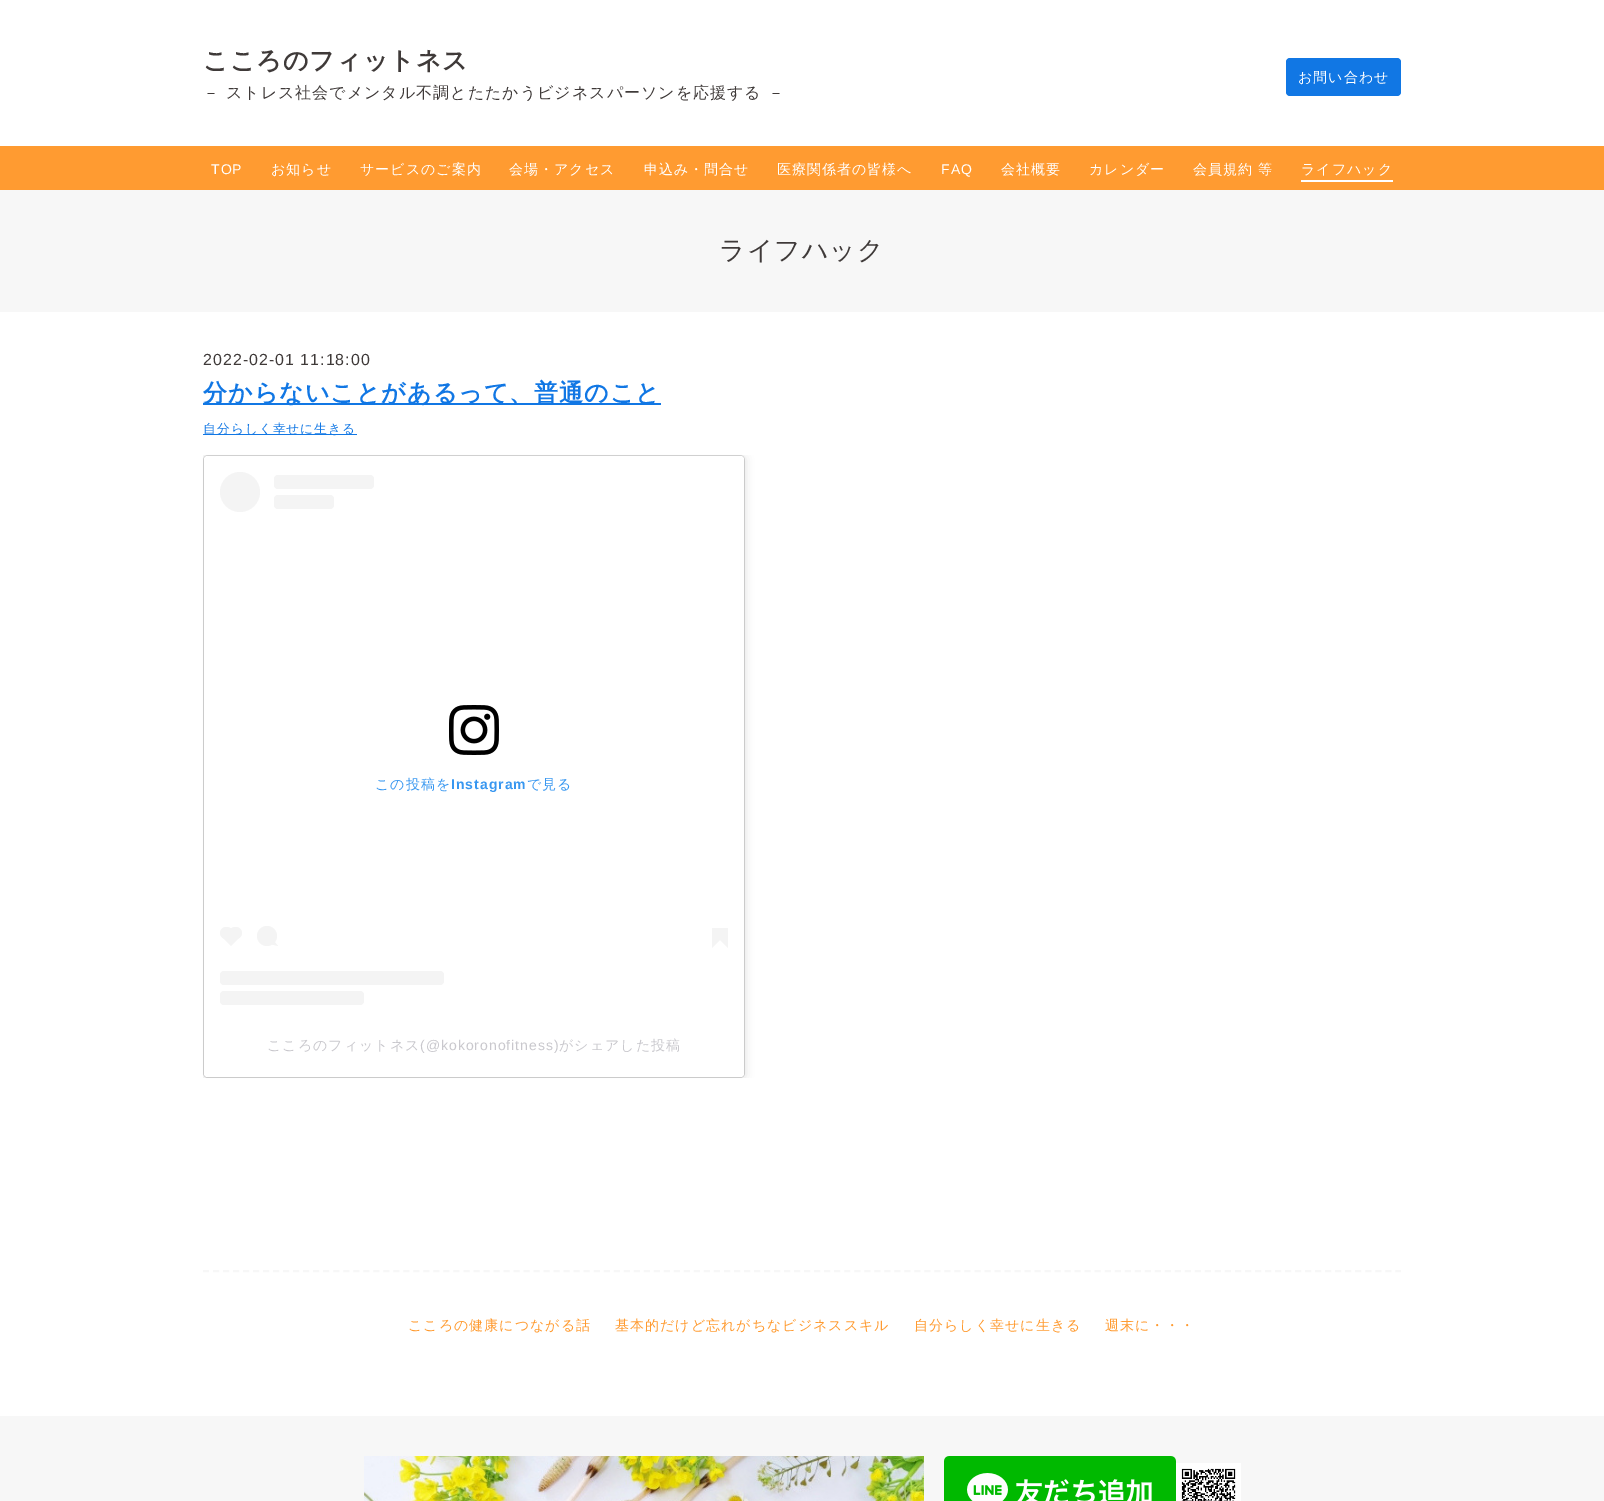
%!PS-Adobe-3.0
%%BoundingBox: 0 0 1604 1501
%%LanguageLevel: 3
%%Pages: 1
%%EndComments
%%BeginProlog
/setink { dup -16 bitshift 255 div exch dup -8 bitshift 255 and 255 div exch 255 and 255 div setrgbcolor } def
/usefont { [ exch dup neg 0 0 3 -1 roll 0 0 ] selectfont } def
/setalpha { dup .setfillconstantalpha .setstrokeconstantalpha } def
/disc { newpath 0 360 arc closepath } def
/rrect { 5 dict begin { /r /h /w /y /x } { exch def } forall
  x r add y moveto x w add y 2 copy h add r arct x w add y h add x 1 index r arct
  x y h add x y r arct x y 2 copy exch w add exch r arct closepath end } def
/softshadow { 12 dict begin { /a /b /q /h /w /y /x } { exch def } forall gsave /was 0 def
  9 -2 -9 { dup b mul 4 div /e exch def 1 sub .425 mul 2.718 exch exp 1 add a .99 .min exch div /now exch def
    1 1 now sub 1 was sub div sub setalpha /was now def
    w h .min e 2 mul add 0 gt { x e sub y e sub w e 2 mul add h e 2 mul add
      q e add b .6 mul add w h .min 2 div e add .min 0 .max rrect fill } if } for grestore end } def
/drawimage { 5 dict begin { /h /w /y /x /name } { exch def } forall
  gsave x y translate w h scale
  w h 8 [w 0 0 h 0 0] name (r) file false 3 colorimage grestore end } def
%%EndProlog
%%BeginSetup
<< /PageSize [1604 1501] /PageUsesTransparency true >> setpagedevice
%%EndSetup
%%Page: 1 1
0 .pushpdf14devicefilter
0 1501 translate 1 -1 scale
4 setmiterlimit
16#FFFFFF setink
0 0 1604 1501 rectfill
/WenQuanYiZenHei-Bold 25 usefont
16#3F3A39 setink
203 69 moveto 1 0 (こころのフィットネス) ashow
/WenQuanYiZenHei-Medium 16 usefont
203 98 moveto 1 0 (－ ストレス社会でメンタル不調とたたかうビジネスパーソンを応援する －) ashow
16#1177E4 setink
1286 58 115 38 4 rrect fill
/WenQuanYiZenHei-Medium 14 usefont
16#FFFFFF setink
1298 82 moveto 1 0 (お問い合わせ) ashow
16#FF9B31 setink
0 146 1604 44 rectfill
/LiberationSans-Regular 14 usefont
16#FFFFFF setink
211 174 moveto 1 0 (TOP) ashow
/WenQuanYiZenHei-Medium 14 usefont
271 174 moveto 1 0 (お知らせ) ashow
360 174 moveto 1 0 (サービスのご案内) ashow
509 174 moveto 1 0 (会場・アクセス) ashow
644 174 moveto 1 0 (申込み・問合せ) ashow
777 174 moveto 1 0 (医療関係者の皆様へ) ashow
/LiberationSans-Regular 14 usefont
941 174 moveto 1 0 (FAQ) ashow
/WenQuanYiZenHei-Medium 14 usefont
1001 174 moveto 1 0 (会社概要) ashow
1089 174 moveto 1 0 (カレンダー) ashow
1193 174 moveto 1 0 (会員規約 等) ashow
1301 174 moveto 1 0 (ライフハック) ashow
1301 180 92 2 rectfill
16#F7F7F7 setink
0 190 1604 122 rectfill
/WenQuanYiZenHei-Medium 26 usefont
16#3F3A39 setink
719 259 moveto 1 0 (ライフハック) ashow
/LiberationSans-Regular 16 usefont
203 365 moveto 1 0 (2022-02-01 11:18:00) ashow
16#1177E4 setink
203 403 458 2 rectfill
/WenQuanYiZenHei-Bold 24 usefont
203 401 moveto 1 0 (分からないことがあるって、普通のこと) ashow
203 434 154 1 rectfill
/WenQuanYiZenHei-Medium 12.75 usefont
203 433 moveto 1 0 (自分らしく幸せに生きる) ashow
gsave
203 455 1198 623 rectclip
16#000000 setink
204 457 540 621 3 5 0.15 softshadow
grestore
16#000000 setink
204 456 540 621 3 0.5 0.5 softshadow
16#FFFFFF setink
204 456 540 621 3 rrect fill
16#F4F4F4 setink
240 492 20 disc fill
274 475 100 14 4 rrect fill
274 495 60 14 4 rrect fill
(img1.raw) 449 705 50 50 drawimage
/WenQuanYiZenHei-Medium 14 usefont
16#3897F0 setink
375 789 moveto 1 0 (この投稿を) ashow
/LiberationSans-Bold 14 usefont
451 789 moveto 1 0 (Instagram) ashow
/WenQuanYiZenHei-Medium 14 usefont
527 789 moveto 1 0 (で見る) ashow
16#F4F4F4 setink
220 927 13 12 6 rrect fill
222 937 moveto 231 928 lineto 240 937 lineto 231 946 lineto closepath fill
229 927 13 12 6 rrect fill
267 936 10 disc fill
272 944.5 moveto 274 941 lineto 278 946 lineto closepath fill
712 928 16 12 rectfill
712 940 moveto 720 940 lineto 712 948 lineto closepath fill
720 940 moveto 728 940 lineto 728 948 lineto closepath fill
220 971 224 14 4 rrect fill
220 991 144 14 4 rrect fill
16#C9C8CD setink
267 1050 moveto 1 0 (こころのフィットネス) ashow
/LiberationSans-Regular 14 usefont
420 1050 moveto 1 0 (\(@kokoronofitness\)) ashow
/WenQuanYiZenHei-Medium 14 usefont
559 1050 moveto 1 0 (がシェアした投稿) ashow
16#F7F7F7 setink
2 setlinewidth
[6 4.02] 0 setdash
203 1271 moveto 1401 1271 lineto stroke
16#FF9B31 setink
408 1330 moveto 1 0 (こころの健康につながる話) ashow
615 1330 moveto 1 0 (基本的だけど忘れがちなビジネススキル) ashow
914 1330 moveto 1 0 (自分らしく幸せに生きる) ashow
1105 1330 moveto 1 0 (週末に・・・) ashow
16#F7F7F7 setink
0 1416 1604 85 rectfill
(img2.raw) 364 1456 560 45 drawimage
(img3.raw) 944 1456 232 45 drawimage
(img4.raw) 1176 1463 65 38 drawimage
.poppdf14devicefilter showpage
%%EOF
